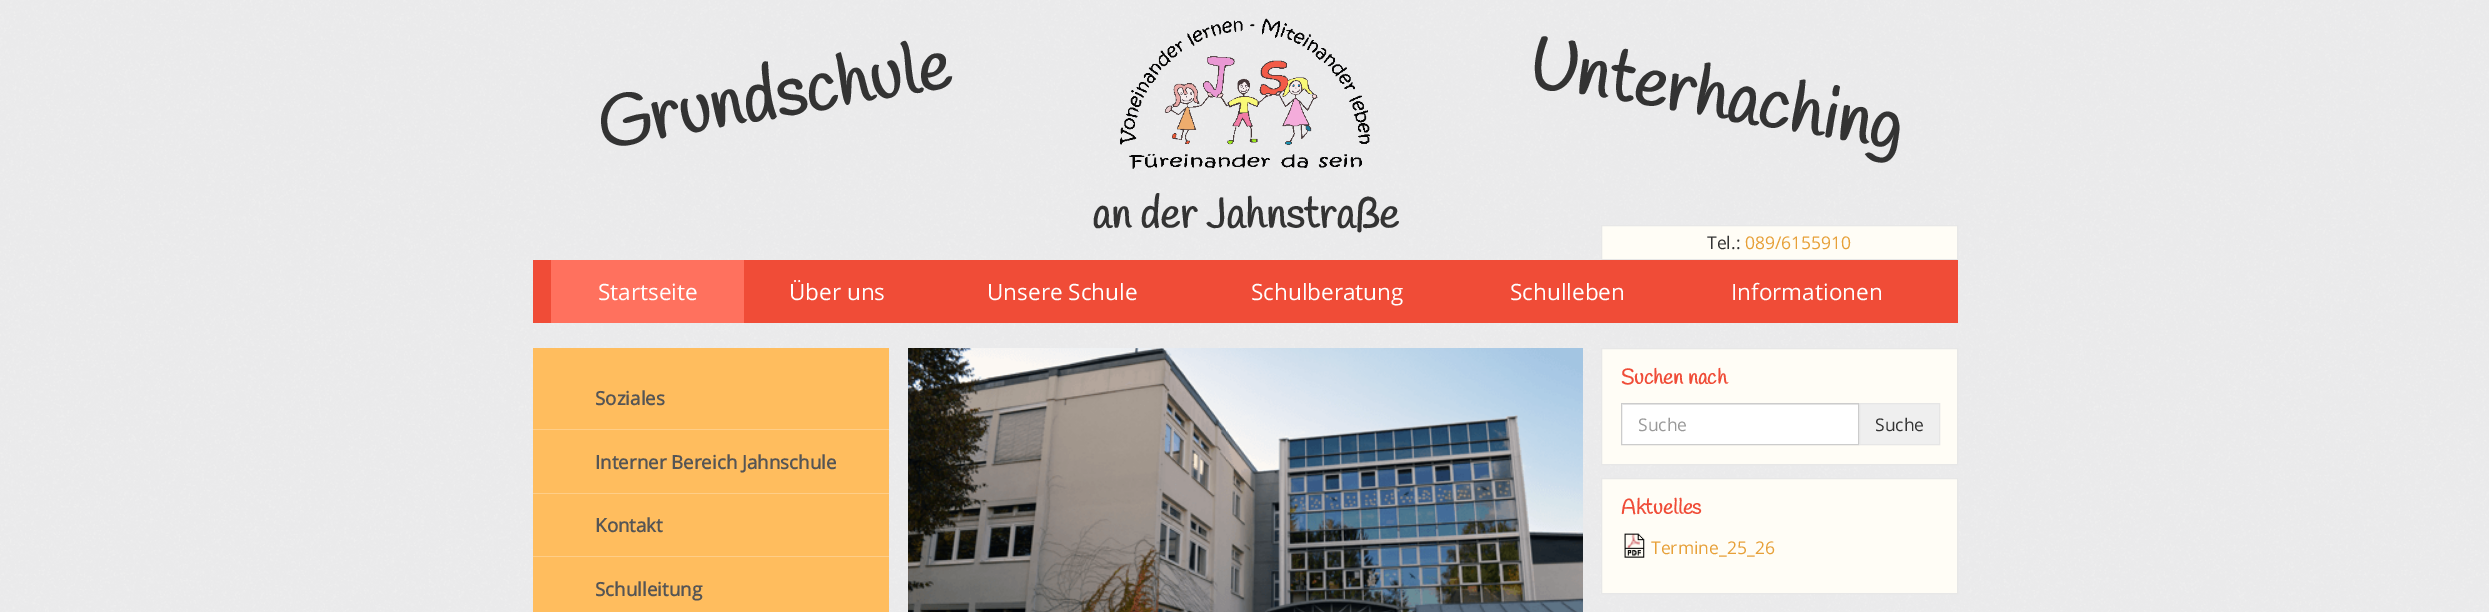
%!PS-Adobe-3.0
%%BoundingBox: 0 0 2489 612
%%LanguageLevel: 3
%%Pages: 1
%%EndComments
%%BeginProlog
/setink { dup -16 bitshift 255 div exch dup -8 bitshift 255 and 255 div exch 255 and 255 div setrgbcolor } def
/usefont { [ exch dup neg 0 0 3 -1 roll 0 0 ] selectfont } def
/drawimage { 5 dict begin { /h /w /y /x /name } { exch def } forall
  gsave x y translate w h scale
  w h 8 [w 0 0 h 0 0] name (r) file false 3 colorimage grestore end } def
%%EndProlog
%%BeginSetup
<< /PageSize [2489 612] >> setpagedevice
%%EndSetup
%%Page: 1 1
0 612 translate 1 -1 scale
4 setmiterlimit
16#FFFFFF setink
0 0 2489 612 rectfill
(img1.raw) 0 0 2489 612 drawimage
/Handlee-Bold 70 usefont
16#333333 setink
gsave 602 149 translate -10 rotate 0 0 moveto (Grundschule) show grestore
(img2.raw) 1120 18 250 151 drawimage
gsave 1526 85 translate 10 rotate 0 0 moveto (Unterhaching) show grestore
/Handlee-Bold 42 usefont
1092 228 moveto (an der Jahnstraße) show
16#FFFDF6 setink
1601.5 225.5 moveto 1957.5 225.5 lineto 1957.5 259.5 lineto 1601.5 259.5 lineto closepath gsave fill grestore
16#E7E7E7 setink
stroke
/OpenSans-Regular 17.5 usefont
16#333333 setink
1707 249 moveto (Tel.:) show
16#E7A038 setink
1745 249 moveto (089/6155910) show
16#F04C37 setink
533 260 1425 63 rectfill
16#FF715E setink
551 260 193 63 rectfill
/OpenSans-Regular 22.5 usefont
16#FFFFFF setink
[
    [(Startseite) 598 300]
    [(Über uns) 789 300]
    [(Unsere Schule) 987 300]
    [(Schulberatung) 1251 300]
    [(Schulleben) 1510 300]
    [(Informationen) 1731 300]
] { aload pop moveto show } forall
16#FFBD5E setink
533 348 356 264 rectfill
16#FFCE88 setink
533 429 356 1 rectfill
/OpenSans-Bold 18.75 usefont
16#555555 setink
595 405 moveto (Soziales) show
16#FFCE88 setink
533 493 356 1 rectfill
16#555555 setink
595 469 moveto (Interner Bereich Jahnschule) show
16#FFCE88 setink
533 556 356 1 rectfill
16#555555 setink
595 532 moveto (Kontakt) show
595 596 moveto (Schulleitung) show
(img3.raw) 908 348 675 264 drawimage
16#FFFDF6 setink
1601.5 348.5 moveto 1957.5 348.5 lineto 1957.5 464.5 lineto 1601.5 464.5 lineto closepath gsave fill grestore
16#E7E7E7 setink
stroke
/Handlee-Bold 21 usefont
16#F04C37 setink
1621 384 moveto (Suchen nach) show
16#FFFFFF setink
1622 404 236 40 rectfill
16#ECECEC setink
1623 404 235 1 rectfill
16#CCCCCC setink
1621.5 403.5 237 41 rectstroke
/OpenSans-Regular 17.5 usefont
16#999999 setink
1638 431 moveto (Suche) show
16#EFEFEF setink
1859.5 403.5 moveto 1939.5 403.5 lineto 1939.5 444.5 lineto 1859.5 444.5 lineto closepath gsave fill grestore
16#E6E6E6 setink
stroke
16#333333 setink
1875 431 moveto (Suche) show
16#FFFDF6 setink
1601.5 478.5 moveto 1957.5 478.5 lineto 1957.5 593.5 lineto 1601.5 593.5 lineto closepath gsave fill grestore
16#E7E7E7 setink
stroke
/Handlee-Bold 21 usefont
16#F04C37 setink
1621 514 moveto (Aktuelles) show
(img4.raw) 1624 533 21 25 drawimage
/OpenSans-Regular 17.5 usefont
16#E7A038 setink
1651 554 moveto (Termine_25_26) show
showpage
%%EOF
